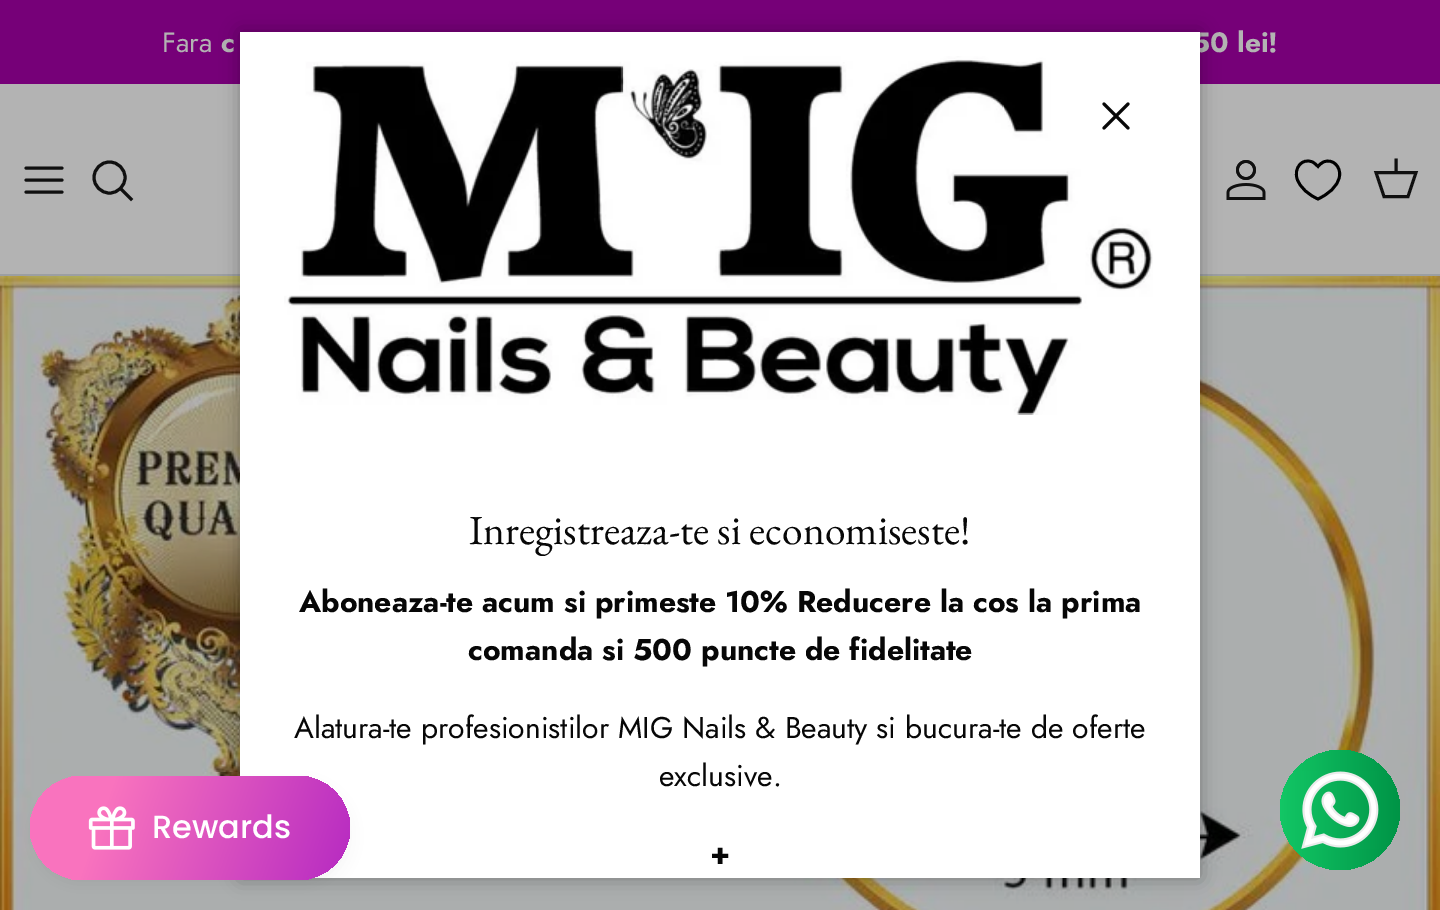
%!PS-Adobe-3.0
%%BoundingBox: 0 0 1440 910
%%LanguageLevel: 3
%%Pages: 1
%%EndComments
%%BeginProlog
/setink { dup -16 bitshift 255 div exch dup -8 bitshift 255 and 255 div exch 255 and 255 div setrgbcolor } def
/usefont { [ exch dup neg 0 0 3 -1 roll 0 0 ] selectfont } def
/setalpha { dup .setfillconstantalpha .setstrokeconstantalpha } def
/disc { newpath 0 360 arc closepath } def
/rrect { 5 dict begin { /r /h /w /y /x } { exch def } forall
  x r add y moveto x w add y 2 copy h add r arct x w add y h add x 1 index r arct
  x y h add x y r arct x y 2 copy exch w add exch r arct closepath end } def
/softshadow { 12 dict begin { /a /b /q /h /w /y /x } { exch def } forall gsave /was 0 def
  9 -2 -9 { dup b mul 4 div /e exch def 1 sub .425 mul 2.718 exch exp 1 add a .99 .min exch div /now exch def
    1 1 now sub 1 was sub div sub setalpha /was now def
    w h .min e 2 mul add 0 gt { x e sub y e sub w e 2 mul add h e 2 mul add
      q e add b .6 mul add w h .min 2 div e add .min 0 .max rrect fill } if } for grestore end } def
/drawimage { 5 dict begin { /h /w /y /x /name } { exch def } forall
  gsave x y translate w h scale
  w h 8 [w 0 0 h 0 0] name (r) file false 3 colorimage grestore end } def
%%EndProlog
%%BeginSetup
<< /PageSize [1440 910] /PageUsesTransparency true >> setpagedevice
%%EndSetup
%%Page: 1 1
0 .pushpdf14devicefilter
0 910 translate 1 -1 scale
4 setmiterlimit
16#B3B3B3 setink
0 0 1440 910 rectfill
16#760078 setink
0 0 1440 84 rectfill
/Jost-Regular 28 usefont
16#B3B3B3 setink
162 52 moveto (Fara) show
/Jost-Bold 28 usefont
221 52 moveto (c) show
1192 52 moveto (50 lei!) show
16#9C9FA2 setink
0 274 1440 2 rectfill
16#101010 setink
3 setlinewidth
1 setlinecap
1 setlinejoin
26 180 moveto 62 180 lineto 26 168 moveto 62 168 lineto 26 192 moveto 62 192 lineto stroke
0 setlinecap
0 setlinejoin
109.5 177.5 15.5 disc stroke
2 setlinecap
122 190 moveto 131 199 lineto stroke
(img1.raw) 1226 160 40 40 drawimage
16#000000 setink
2.8 setlinewidth
0 setlinecap
1318 199 moveto 1309 195 1300 188 1297 178.5 curveto 1294 168.5 1301.5 157.5 1312.5 162 curveto 1314.5 163 1316 164.5 1318 166.5 curveto 1319.5 164.5 1321.5 163 1323.5 162 curveto 1333 158 1341 167 1339.5 176 curveto 1338 187 1327.5 194.5 1318 199 curveto closepath stroke
16#101010 setink
3 setlinewidth
1376 172.5 moveto 1416 172.5 lineto 1408 196.5 lineto 1384 196.5 lineto closepath stroke
2 setlinecap
1396 172 moveto 1396 160 lineto stroke
(img2.raw) 0 276 1440 634 drawimage
16#000000 setink
240 32 960 846 0 10 0.3 softshadow
16#FFFFFF setink
240 32 960 846 rectfill
16#444444 setink
34 788 312 96 48 8 0.08 softshadow
gsave 30 776 320 104 52 rrect clip newpath
<< /ShadingType 2 /ColorSpace /DeviceRGB /Coords [32 772 476 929] /Extend [true true] /Function << /FunctionType 3 /Domain [0 1] /Functions [<< /FunctionType 2 /Domain [0 1] /C0 [0.976 0.451 0.745] /C1 [0.976 0.451 0.745] /N 1 >> << /FunctionType 2 /Domain [0 1] /C0 [0.976 0.451 0.745] /C1 [0.576 0.012 0.769] /N 1 >>] /Bounds [0.17] /Encode [0 1 0 1] >> >> shfill grestore
(img3.raw) 88 806 47 44 drawimage
/Poppins-Medium 32 usefont
16#FFFFFF setink
152 838 moveto (Rewards) show
(img4.raw) 284 56 869 359 drawimage
16#070707 setink
1 setlinecap
1 setlinejoin
1128 104 moveto 1104 128 lineto 1104 104 moveto 1128 128 lineto stroke
/EBGaramond-Regular 41.5 usefont
469 544 moveto (Inregistreaza-te si economiseste!) show
/Jost-Bold 30 usefont
299 612 moveto (Aboneaza-te acum si primeste 10% Reducere la cos la prima) show
468 660 moveto (comanda si 500 puncte de fidelitate) show
/Jost-Regular 30 usefont
294 738 moveto (Alatura-te profesionistilor MIG Nails & Beauty si bucura-te de oferte) show
659 786 moveto (exclusive.) show
/Jost-Bold 30 usefont
710 864 moveto (+) show
gsave 1340 810 60 disc clip newpath
<< /ShadingType 2 /ColorSpace /DeviceRGB /Coords [1280 810 1400 810] /Extend [true true] /Function << /FunctionType 3 /Domain [0 1] /Functions [<< /FunctionType 2 /Domain [0 1] /C0 [0.071 0.776 0.396] /C1 [0.071 0.776 0.396] /N 1 >> << /FunctionType 2 /Domain [0 1] /C0 [0.071 0.776 0.396] /C1 [0 0.58 0.275] /N 1 >>] /Bounds [0.01] /Encode [0 1 0 1] >> >> shfill grestore
(img5.raw) 1301 771 78 78 drawimage
.poppdf14devicefilter showpage
%%EOF
